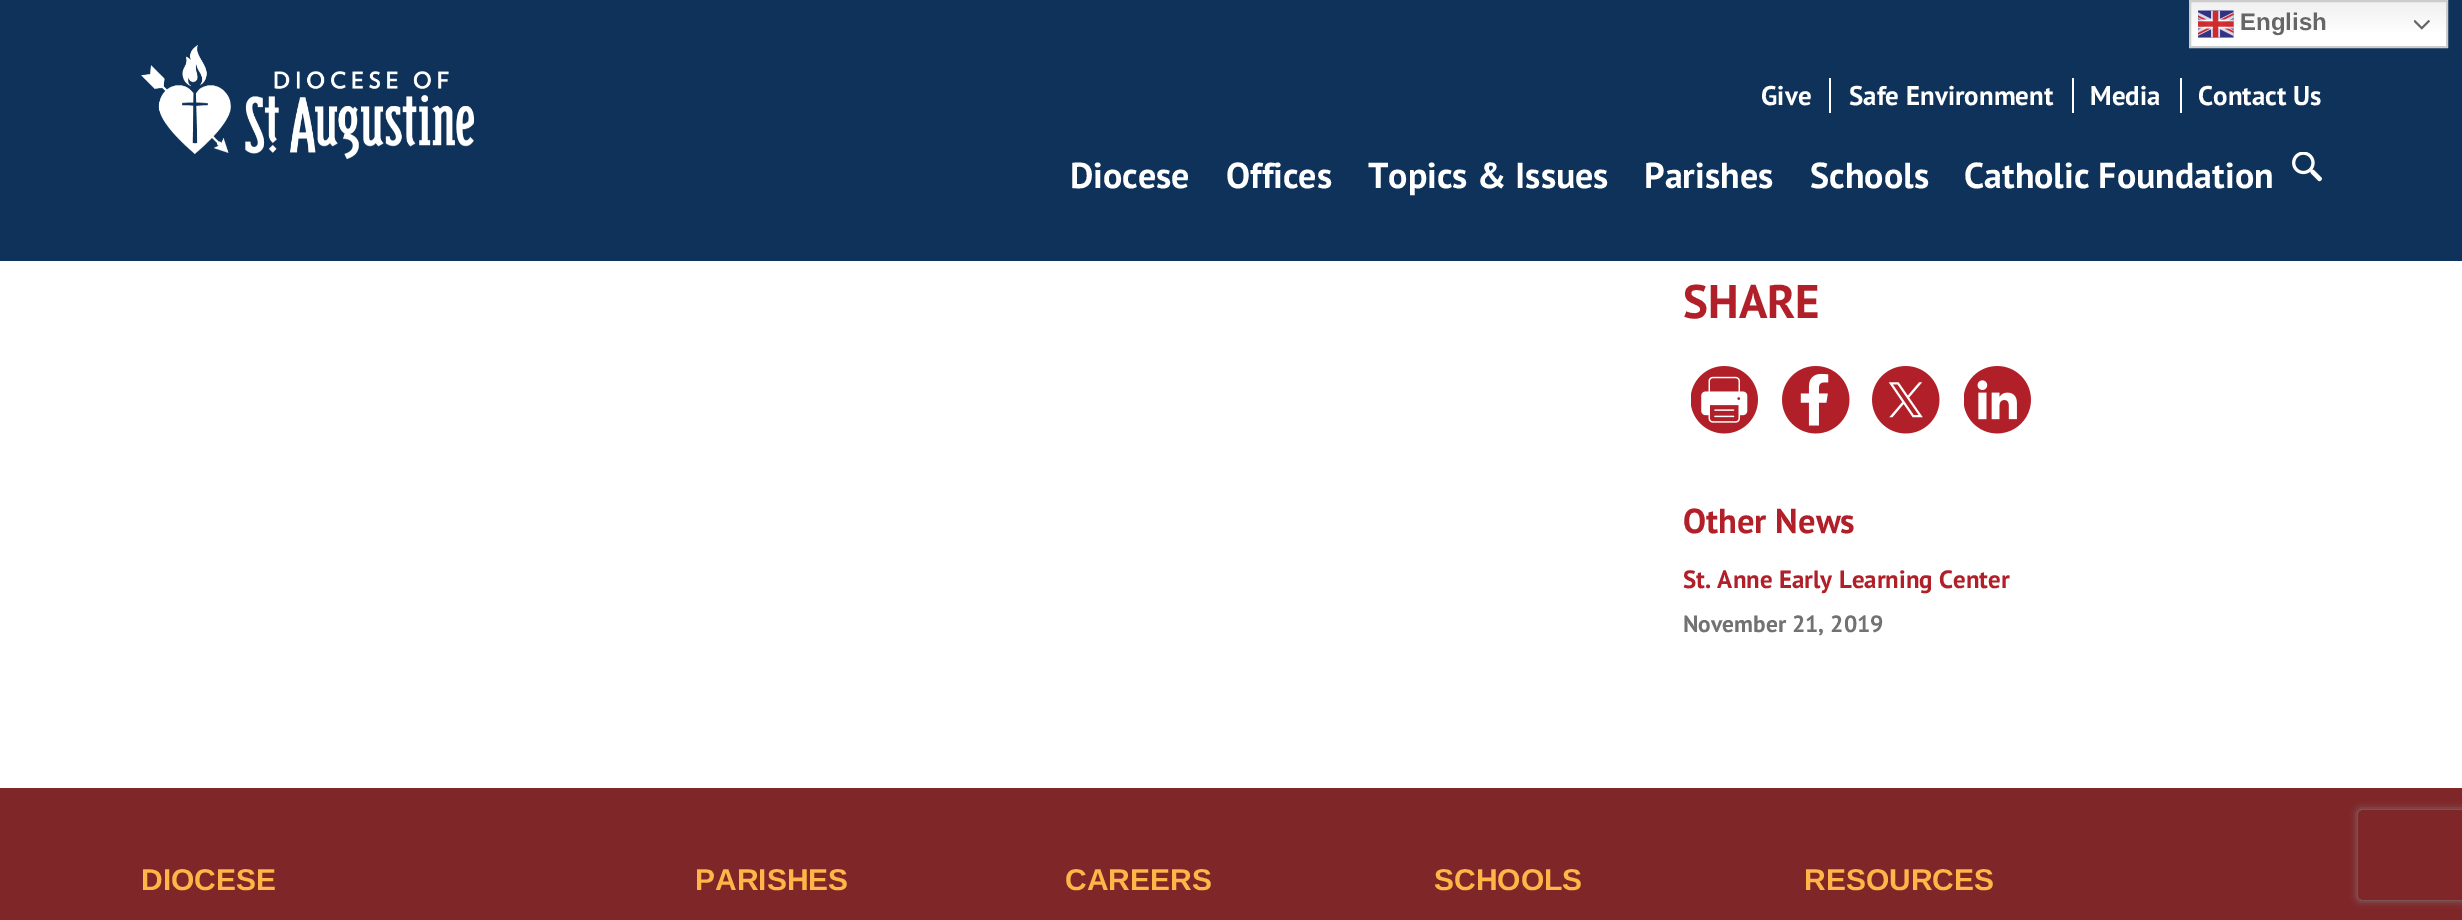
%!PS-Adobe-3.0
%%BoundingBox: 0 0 2462 920
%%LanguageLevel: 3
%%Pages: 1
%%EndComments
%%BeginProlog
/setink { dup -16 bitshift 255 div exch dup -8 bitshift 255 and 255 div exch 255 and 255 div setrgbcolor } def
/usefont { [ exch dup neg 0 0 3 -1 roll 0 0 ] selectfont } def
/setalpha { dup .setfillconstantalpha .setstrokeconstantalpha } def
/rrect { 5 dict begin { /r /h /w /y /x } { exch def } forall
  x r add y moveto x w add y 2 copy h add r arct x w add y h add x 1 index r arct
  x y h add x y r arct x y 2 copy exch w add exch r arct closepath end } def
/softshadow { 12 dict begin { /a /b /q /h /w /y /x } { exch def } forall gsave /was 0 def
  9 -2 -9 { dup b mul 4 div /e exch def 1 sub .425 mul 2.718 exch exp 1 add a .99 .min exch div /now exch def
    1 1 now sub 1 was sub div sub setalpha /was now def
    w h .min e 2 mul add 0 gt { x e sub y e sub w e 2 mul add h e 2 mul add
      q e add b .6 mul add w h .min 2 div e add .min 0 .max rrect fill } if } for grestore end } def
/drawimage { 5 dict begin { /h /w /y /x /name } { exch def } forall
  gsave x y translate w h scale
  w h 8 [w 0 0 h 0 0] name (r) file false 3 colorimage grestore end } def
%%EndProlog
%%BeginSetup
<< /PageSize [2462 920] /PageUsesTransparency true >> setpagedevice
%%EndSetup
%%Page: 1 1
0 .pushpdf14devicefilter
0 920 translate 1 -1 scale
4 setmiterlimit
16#7F2629 setink
0 0 2462 920 rectfill
16#0E3259 setink
0 0 2462 261 rectfill
(img1.raw) 141 45 333 114 drawimage
gsave 2191 2 moveto 2446 2 lineto 2446 46 lineto 2191 46 lineto closepath clip newpath
<< /ShadingType 2 /ColorSpace /DeviceRGB /Coords [2318 0 2318 48] /Extend [true true] /Function << /FunctionType 3 /Domain [0 1] /Functions [<< /FunctionType 2 /Domain [0 1] /C0 [0.937 0.937 0.937] /C1 [1 1 1] /N 1 >> << /FunctionType 2 /Domain [0 1] /C0 [1 1 1] /C1 [1 1 1] /N 1 >>] /Bounds [0.7] /Encode [0 1 0 1] >> >> shfill grestore
16#CCCCCC setink
2 setlinewidth
2190 1 257 46 rectstroke
(img2.raw) 2198 10 36 28 drawimage
/LiberationSans-Bold 24 usefont
16#666666 setink
2240 30 moveto (English) show
(img3.raw) 2414 20 16 10 drawimage
16#FFFFFF setink
1829 78 2 35 rectfill
/PTSans-Bold 27 usefont
1761 105 moveto (Give) show
2072 78 2 35 rectfill
1849 105 moveto (Safe Environment) show
2180 78 2 35 rectfill
2090 105 moveto (Media) show
2198 105 moveto (Contact Us) show
/PTSans-Bold 36 usefont
[
    [(Diocese) 1070 188]
    [(Offices) 1226 188]
    [(Topics & Issues) 1368 188]
    [(Parishes) 1644 188]
    [(Schools) 1810 188]
    [(Catholic Foundation) 1964 188]
] { aload pop moveto show } forall
(img4.raw) 2292 152 30 30 drawimage
0 261 2462 527 rectfill
/PTSans-Bold 47 usefont
16#B12028 setink
1683 318 moveto (SHARE) show
(img5.raw) 1691 366 67 68 drawimage
(img6.raw) 1782 366 68 68 drawimage
(img7.raw) 1872 366 68 68 drawimage
(img8.raw) 1964 366 67 68 drawimage
/PTSans-Bold 34.5 usefont
1683 533 moveto (Other News) show
/PTSans-Bold 25 usefont
1683 588 moveto (St. Anne Early Learning Center) show
/PTSans-Bold 23.5 usefont
16#727272 setink
1683 632 moveto (November 21, 2019) show
/LiberationSans-Bold 30 usefont
16#FFB548 setink
[
    [(DIOCESE) 141 890]
    [(PARISHES) 695 890]
    [(CAREERS) 1065 890]
    [(SCHOOLS) 1434 890]
    [(RESOURCES) 1804 890]
] { aload pop moveto show } forall
gsave
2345 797 moveto 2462 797 lineto 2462 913 lineto 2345 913 lineto closepath 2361 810 moveto 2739 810 lineto 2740.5 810 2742 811.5 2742 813 curveto 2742 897 lineto 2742 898.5 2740.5 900 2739 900 curveto 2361 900 lineto 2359.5 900 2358 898.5 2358 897 curveto 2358 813 lineto 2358 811.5 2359.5 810 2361 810 curveto closepath eoclip newpath
16#808080 setink
2358 810 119 90 3 4 1 softshadow
grestore
.poppdf14devicefilter showpage
%%EOF
